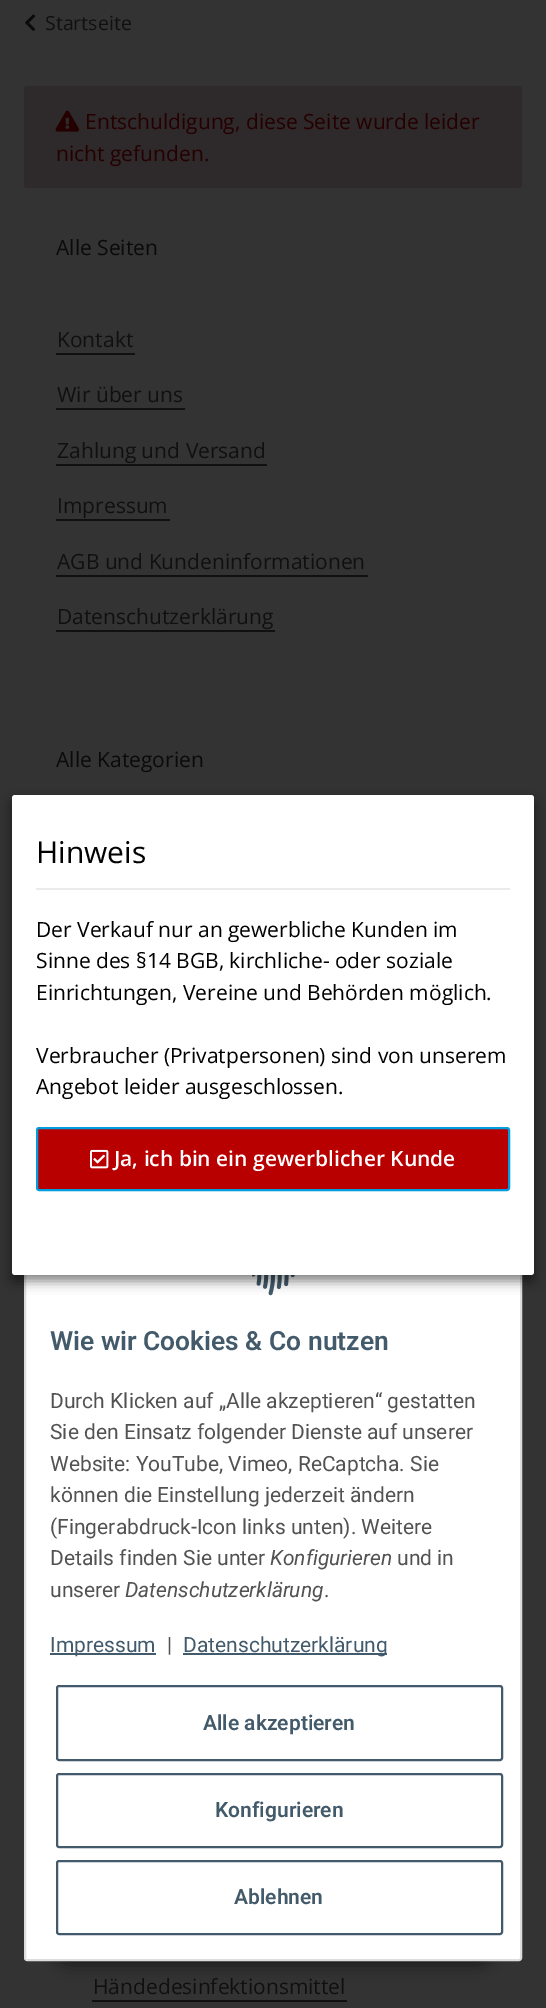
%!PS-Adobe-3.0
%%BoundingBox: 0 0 546 2008
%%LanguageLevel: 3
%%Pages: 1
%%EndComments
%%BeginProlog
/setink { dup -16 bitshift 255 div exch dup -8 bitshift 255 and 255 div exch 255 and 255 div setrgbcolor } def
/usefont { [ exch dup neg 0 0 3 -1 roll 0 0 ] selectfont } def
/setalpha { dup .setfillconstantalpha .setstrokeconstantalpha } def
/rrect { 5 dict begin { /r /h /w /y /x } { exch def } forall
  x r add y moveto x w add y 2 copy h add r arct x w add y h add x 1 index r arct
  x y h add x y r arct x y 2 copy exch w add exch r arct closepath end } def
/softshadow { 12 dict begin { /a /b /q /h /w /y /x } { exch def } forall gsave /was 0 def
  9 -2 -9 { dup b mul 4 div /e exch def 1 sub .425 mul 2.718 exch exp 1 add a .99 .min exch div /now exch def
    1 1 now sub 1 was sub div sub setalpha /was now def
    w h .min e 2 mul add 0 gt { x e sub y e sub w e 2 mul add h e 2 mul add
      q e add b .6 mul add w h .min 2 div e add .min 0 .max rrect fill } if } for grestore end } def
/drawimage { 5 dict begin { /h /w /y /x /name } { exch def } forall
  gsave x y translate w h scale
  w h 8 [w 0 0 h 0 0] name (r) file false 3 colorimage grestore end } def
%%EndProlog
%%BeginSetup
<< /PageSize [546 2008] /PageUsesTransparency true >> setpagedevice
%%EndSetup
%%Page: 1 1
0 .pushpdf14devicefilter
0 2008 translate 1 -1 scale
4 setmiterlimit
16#333333 setink
0 0 546 2008 rectfill
(img1.raw) 25 14 11 17 drawimage
/OpenSans-Regular 19.5 usefont
16#101010 setink
45 30 moveto (Startseite) show
16#2E292A setink
24 86 498 102 3 rrect fill
(img2.raw) 55 110 25 22 drawimage
/OpenSans-Regular 21 usefont
16#250000 setink
85 129 moveto (Entschuldigung, diese Seite wurde leider) show
56 161 moveto (nicht gefunden.) show
16#0A0A0A setink
56 255 moveto (Alle Seiten) show
16#101010 setink
57 347 moveto (Kontakt) show
56 353 79 2 rectfill
57 402 moveto (Wir über uns) show
56 408 129 2 rectfill
57 458 moveto (Zahlung und Versand) show
56 464 211 2 rectfill
57 513 moveto (Impressum) show
56 519 114 2 rectfill
57 569 moveto (AGB und Kundeninformationen) show
56 575 312 2 rectfill
57 624 moveto (Datenschutzerklärung) show
56 630 219 2 rectfill
16#0A0A0A setink
56 767 moveto (Alle Kategorien) show
16#101010 setink
93 1994 moveto (Händedesinfektionsmittel) show
92 2000 255 2 rectfill
16#000000 setink
51 1917 446 48 24 7.5 0.45 softshadow
16#FFFFFF setink
25 1273 496 687 2 rrect gsave fill grestore
16#DDDDDD setink
2 setlinewidth
stroke
(img4.raw) 252 1275 43 21 drawimage
16#000000 setink
12 801 522 480 3 6 0.5 softshadow
16#FFFFFF setink
12 795 522 480 3 rrect fill
16#EBEBEB setink
36 888 474 2 rectfill
/OpenSans-Regular 30 usefont
16#000000 setink
36 863 moveto (Hinweis) show
/OpenSans-Regular 21 usefont
[
    [(Der Verkauf nur an gewerbliche Kunden im) 36 937]
    [(Sinne des §14 BGB, kirchliche- oder soziale) 36 968]
    [(Einrichtungen, Vereine und Behörden möglich.) 36 1000]
    [(Verbraucher \(Privatpersonen\) sind von unserem) 36 1063]
    [(Angebot leider ausgeschlossen.) 36 1094]
] { aload pop moveto show } forall
16#B90000 setink
37 1128 472 62 2 rrect gsave fill grestore
16#009EDF setink
stroke
(img3.raw) 90 1149 19 20 drawimage
/OpenSans-SemiBold 21 usefont
16#FFFFFF setink
114 1166 moveto (Ja, ich bin ein gewerblicher Kunde) show
/Roboto-SemiBold 26.4 usefont
16#435A6B setink
50 1350 moveto (Wie wir Cookies & Co nutzen) show
/Roboto-Regular 21 usefont
16#525252 setink
[
    [(Durch Klicken auf „Alle akzeptieren“ gestatten) 50 1408]
    [(Sie den Einsatz folgender Dienste auf unserer) 50 1439]
    [(Website: YouTube, Vimeo, ReCaptcha. Sie) 50 1471]
    [(können die Einstellung jederzeit ändern) 50 1502]
    [(\(Fingerabdruck-Icon links unten\). Weitere) 50 1534]
    [(Details finden Sie unter) 50 1565]
] { aload pop moveto show } forall
/Roboto-Italic 21 usefont
270 1565 moveto (Konfigurieren) show
/Roboto-Regular 21 usefont
397 1565 moveto (und in) show
50 1597 moveto (unserer) show
/Roboto-Italic 21 usefont
125 1597 moveto (Datenschutzerklärung) show
/Roboto-Regular 21 usefont
324 1597 moveto (.) show
16#435A6B setink
50 1653 106 2 rectfill
50 1652 moveto (Impressum) show
16#525252 setink
167 1652 moveto (|) show
16#435A6B setink
183 1653 204 2 rectfill
183 1652 moveto (Datenschutzerklärung) show
57 1686 445 74 2 rrect stroke
/Roboto-SemiBold 21 usefont
203 1730 moveto (Alle akzeptieren) show
57 1774 445 73 2 rrect stroke
215 1817 moveto (Konfigurieren) show
57 1861 445 73 2 rrect stroke
234 1904 moveto (Ablehnen) show
.poppdf14devicefilter showpage
%%EOF
